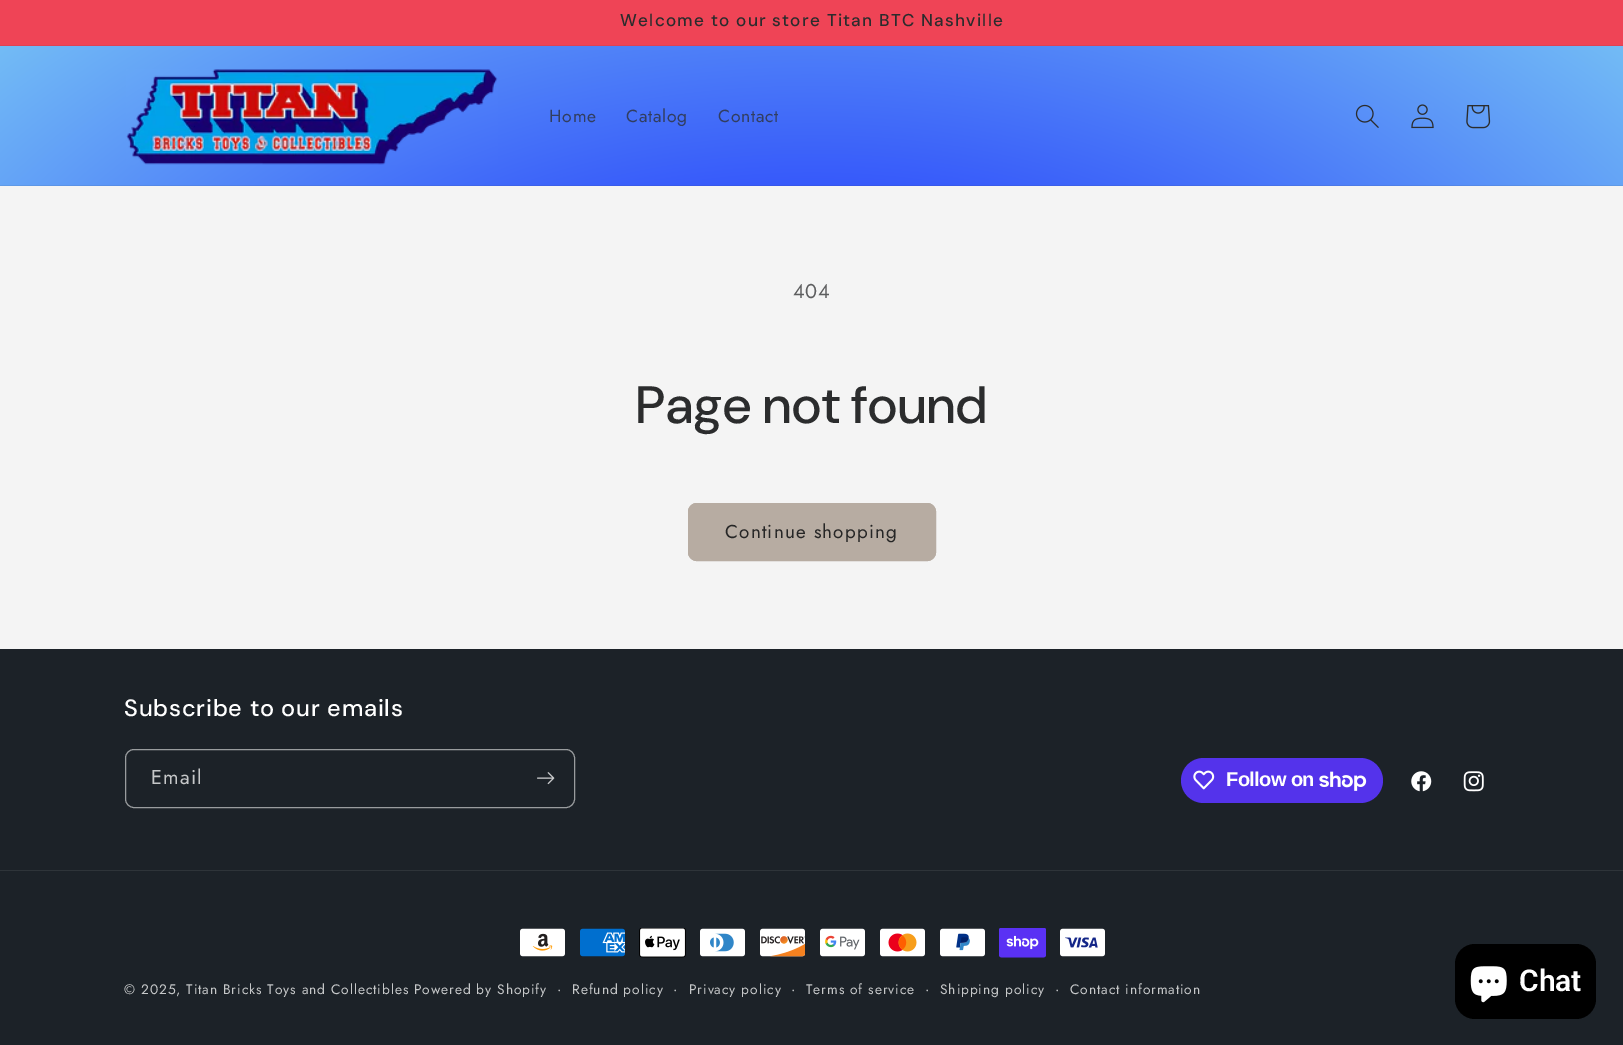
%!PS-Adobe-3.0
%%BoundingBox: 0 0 1623 1045
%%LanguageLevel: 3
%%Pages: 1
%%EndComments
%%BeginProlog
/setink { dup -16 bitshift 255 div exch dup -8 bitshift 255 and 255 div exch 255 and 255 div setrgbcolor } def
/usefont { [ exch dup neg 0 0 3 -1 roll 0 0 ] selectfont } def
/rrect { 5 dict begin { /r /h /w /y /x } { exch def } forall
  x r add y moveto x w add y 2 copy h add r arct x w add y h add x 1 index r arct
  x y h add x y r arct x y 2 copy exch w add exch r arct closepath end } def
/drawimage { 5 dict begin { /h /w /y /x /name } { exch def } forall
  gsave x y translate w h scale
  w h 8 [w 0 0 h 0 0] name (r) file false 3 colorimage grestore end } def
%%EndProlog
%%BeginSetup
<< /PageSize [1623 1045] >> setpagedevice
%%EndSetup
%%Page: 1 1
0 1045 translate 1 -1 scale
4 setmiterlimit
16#F4F4F4 setink
0 0 1623 1045 rectfill
gsave 0 0 moveto 1623 0 lineto 1623 45 lineto 0 45 lineto closepath clip newpath
<< /ShadingType 2 /ColorSpace /DeviceRGB /Coords [812 0 812 1045] /Extend [true true] /Function << /FunctionType 2 /Domain [0 1] /C0 [0.941 0.271 0.341] /C1 [0.867 0.153 0.224] /N 1 >> >> shfill grestore
16#DF4253 setink
0 45 1623 1 rectfill
/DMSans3-Medium 17.1 usefont
16#2B2C2D setink
620 26 moveto 1.25 0 (Welcome to our store Titan BTC Nashville) ashow
gsave 0 46 moveto 1623 46 lineto 1623 185 lineto 0 185 lineto closepath clip newpath 812 523 translate 1148 739 scale
<< /ShadingType 3 /ColorSpace /DeviceRGB /Coords [0 0 0 0 0 1] /Extend [true true] /Function << /FunctionType 2 /Domain [0 1] /C0 [0 0 1] /C1 [0.471 0.769 0.961] /N 1 >> >> shfill grestore
gsave 0 185 moveto 1623 185 lineto 1623 186 lineto 0 186 lineto closepath clip newpath 812 523 translate 1148 739 scale
<< /ShadingType 3 /ColorSpace /DeviceRGB /Coords [0 0 0 0 0 1] /Extend [true true] /Function << /FunctionType 2 /Domain [0 1] /C0 [0.012 0.016 0.933] /C1 [0.447 0.722 0.898] /N 1 >> >> shfill grestore
(img1.raw) 126 69 372 96 drawimage
/Jost-Regular 17.5 usefont
16#323E60 setink
549 122 moveto 0.75 0 (Home) ashow
626 122 moveto 0.75 0 (Catalog) ashow
718 122 moveto 0.75 0 (Contact) ashow
(img2.raw) 1355 104 24 24 drawimage
(img3.raw) 1411 104 23 25 drawimage
(img4.raw) 1466 105 25 24 drawimage
/Jost-Regular 20 usefont
16#5D5E5F setink
793 298 moveto 0.75 0 (404) ashow
/DMSans-Medium 52.5 usefont
16#2B2C2D setink
636 423 moveto 0.75 0 (Page not found) ashow
16#B7ACA2 setink
688 503 248 58 9 rrect fill
688.5 503.5 247 57 8.5 rrect stroke
/Jost-Regular 18.75 usefont
16#262626 setink
725 538 moveto 1.25 0 (Continue shopping) ashow
16#1C2228 setink
0 649 1623 396 rectfill
/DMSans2-Medium 23.6 usefont
16#FFFFFF setink
124 716 moveto 0.75 0 (Subscribe to our emails) ashow
16#999C9E setink
125.5 749.5 449 58 8.5 rrect stroke
/Jost-Regular 20 usefont
16#C6C8C9 setink
151 784 moveto 1.25 0 (Email) ashow
(img5.raw) 537 772 18 13 drawimage
16#5433EB setink
1181 758 202 45 22.5 rrect fill
(img6.raw) 1193 770 22 20 drawimage
/LiberationSans-Bold 20 usefont
16#FFFFFF setink
1226 786 moveto -0.6 0 (Follow on) ashow
(img7.raw) 1319 771 48 20 drawimage
(img8.raw) 1411 771 21 21 drawimage
(img9.raw) 1463 771 21 21 drawimage
16#2E3439 setink
0 870 1623 1 rectfill
(img10.raw) 520 928 45 29 drawimage
(img11.raw) 580 928 45 29 drawimage
(img12.raw) 639 928 47 30 drawimage
(img13.raw) 700 928 45 29 drawimage
(img14.raw) 760 928 45 29 drawimage
(img15.raw) 820 928 45 29 drawimage
(img16.raw) 880 928 45 29 drawimage
(img17.raw) 940 928 45 29 drawimage
(img18.raw) 999 928 47 30 drawimage
(img19.raw) 1060 928 45 29 drawimage
/Jost-Regular 13.75 usefont
16#C6C8C9 setink
124 994 moveto 0.9 0 (© 2025, Titan Bricks Toys and Collectibles) ashow
414 994 moveto 0.9 0 (Powered by Shopify) ashow
/Jost-Regular 15 usefont
557 994 moveto 0.9 0 (·) ashow
/Jost-Regular 13.75 usefont
572 994 moveto 0.9 0 (Refund policy) ashow
/Jost-Regular 15 usefont
673 994 moveto 0.9 0 (·) ashow
/Jost-Regular 13.75 usefont
689 994 moveto 0.9 0 (Privacy policy) ashow
/Jost-Regular 15 usefont
791 994 moveto 0.9 0 (·) ashow
/Jost-Regular 13.75 usefont
806 994 moveto 0.9 0 (Terms of service) ashow
/Jost-Regular 15 usefont
925 994 moveto 0.9 0 (·) ashow
/Jost-Regular 13.75 usefont
940 994 moveto 0.9 0 (Shipping policy) ashow
/Jost-Regular 15 usefont
1055 994 moveto 0.9 0 (·) ashow
/Jost-Regular 13.75 usefont
1070 994 moveto 0.9 0 (Contact information) ashow
16#000000 setink
1455 944 141 75 20 rrect fill
(img20.raw) 1470 966 37 37 drawimage
/Roboto-SemiBold 30 usefont
16#FFFFFF setink
1519 991 moveto (Chat) show
showpage
%%EOF
